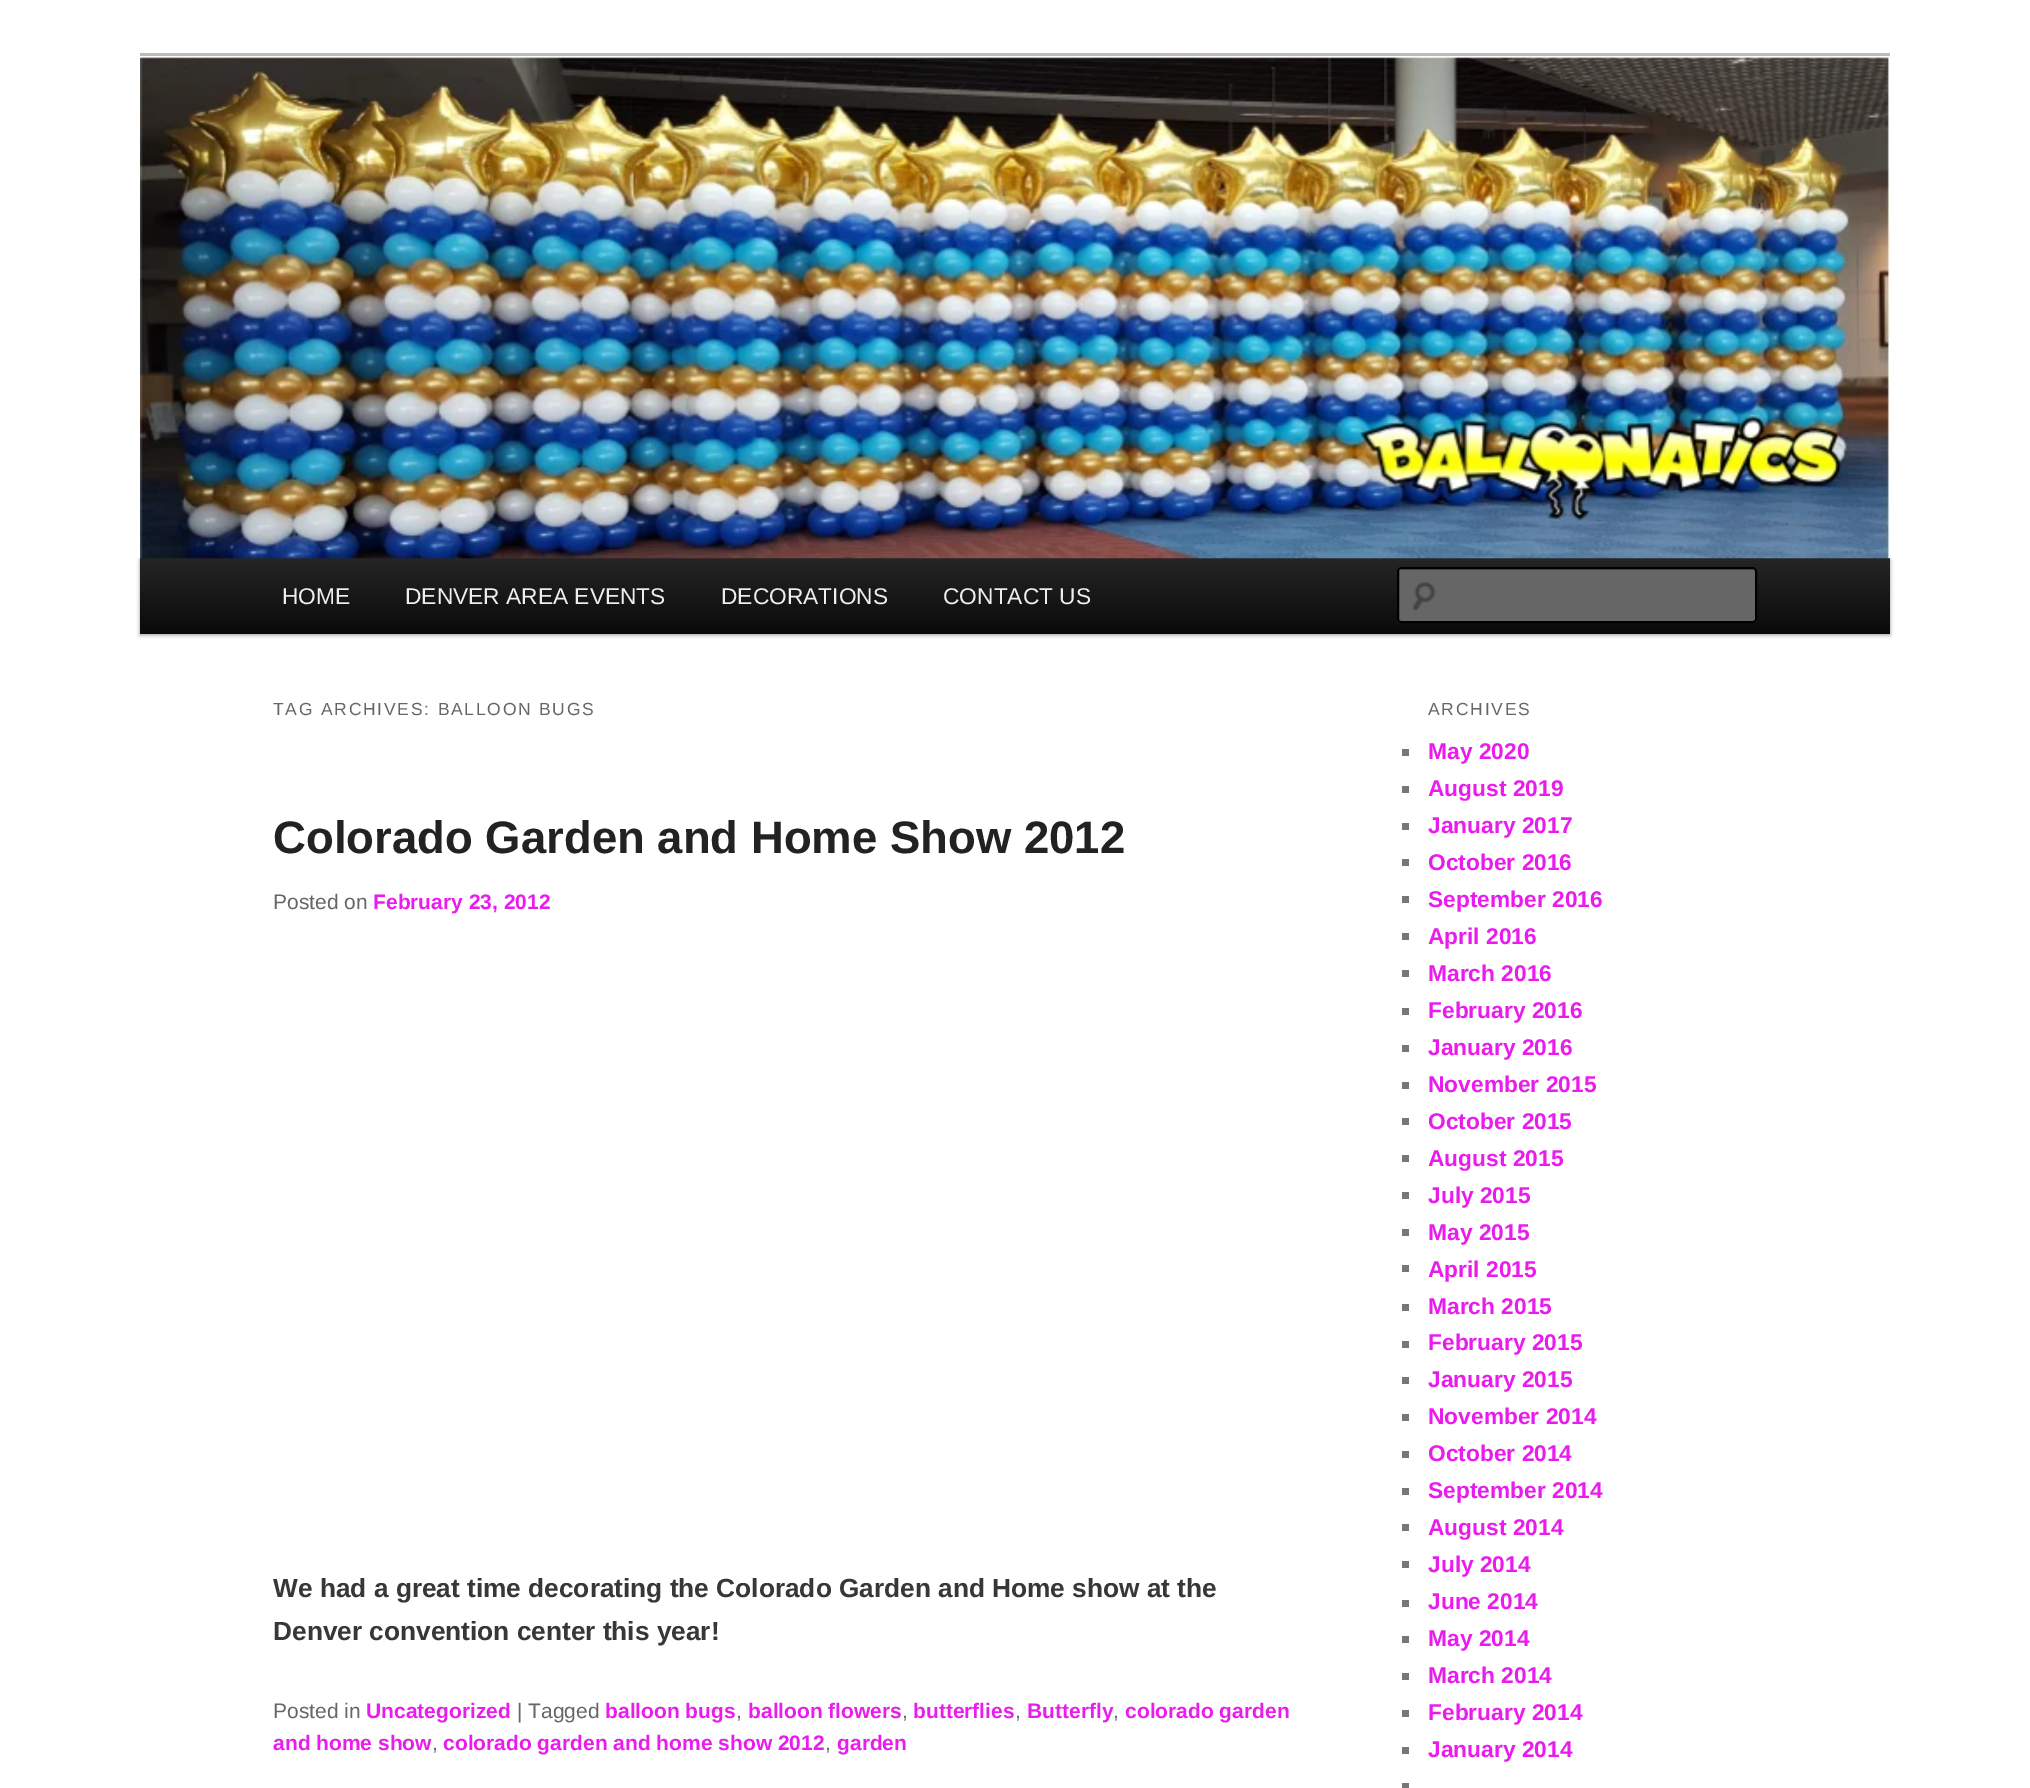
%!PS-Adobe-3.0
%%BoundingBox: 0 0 2030 1788
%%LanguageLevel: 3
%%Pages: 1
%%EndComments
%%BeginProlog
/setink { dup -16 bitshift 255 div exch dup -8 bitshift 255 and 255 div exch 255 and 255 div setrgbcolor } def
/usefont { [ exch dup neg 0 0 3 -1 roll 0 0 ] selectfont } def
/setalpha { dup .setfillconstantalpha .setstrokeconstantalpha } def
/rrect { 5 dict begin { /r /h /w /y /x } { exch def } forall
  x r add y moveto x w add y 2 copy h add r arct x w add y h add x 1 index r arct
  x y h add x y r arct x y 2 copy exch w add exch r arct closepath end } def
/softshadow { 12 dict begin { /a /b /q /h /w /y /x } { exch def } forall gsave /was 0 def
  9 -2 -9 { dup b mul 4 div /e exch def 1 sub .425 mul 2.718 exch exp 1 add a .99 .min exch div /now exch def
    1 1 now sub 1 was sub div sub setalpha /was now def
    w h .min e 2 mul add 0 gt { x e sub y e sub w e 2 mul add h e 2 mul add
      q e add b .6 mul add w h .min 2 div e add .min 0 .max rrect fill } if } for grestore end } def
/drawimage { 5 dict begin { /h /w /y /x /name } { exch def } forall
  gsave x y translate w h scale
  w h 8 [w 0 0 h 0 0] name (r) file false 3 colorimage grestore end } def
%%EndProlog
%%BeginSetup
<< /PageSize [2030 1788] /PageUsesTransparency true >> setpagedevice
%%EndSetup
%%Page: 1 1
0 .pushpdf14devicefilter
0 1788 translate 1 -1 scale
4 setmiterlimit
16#FFFFFF setink
0 0 2030 1788 rectfill
16#BBBBBB setink
140 53 1750 3 rectfill
16#000000 setink
140 560 1750 75 0 2 0.4 softshadow
gsave 140 558 moveto 1890 558 lineto 1890 634 lineto 140 634 lineto closepath clip newpath
<< /ShadingType 2 /ColorSpace /DeviceRGB /Coords [1015 558 1015 634] /Extend [true true] /Function << /FunctionType 2 /Domain [0 1] /C0 [0.145 0.145 0.145] /C1 [0.039 0.039 0.039] /N 1 >> >> shfill grestore
(img1.raw) 140 56 1750 503 drawimage
/LiberationSans-Regular 22.75 usefont
16#EEEEEE setink
[
    [(HOME) 282 604]
    [(DENVER AREA EVENTS) 405 604]
    [(DECORATIONS) 721 604]
    [(CONTACT US) 943 604]
] { aload pop moveto show } forall
16#666666 setink
1397 567 360 56 4 rrect fill
(img2.raw) 1412 581 24 30 drawimage
16#5C5C5C setink
1400 570 moveto 1754 570 lineto 1755 572 lineto 1755 571 1755 569 1753 569 curveto 1400 569 lineto 1398 569 1398 571 1398 572 curveto 1398 571 1399 570 1400 570 curveto closepath fill
16#000000 setink
2 setlinewidth
1398 568 358 54 3 rrect stroke
/LiberationSans-Regular 17.5 usefont
16#666666 setink
273 715 moveto 1.75 0 (TAG ARCHIVES: BALLOON BUGS) ashow
/LiberationSans-Bold 45.5 usefont
16#222222 setink
273 853 moveto (Colorado Garden and Home Show 2012) show
/LiberationSans-Regular 21 usefont
16#666666 setink
273 909 moveto (Posted on) show
/LiberationSans-Bold 21 usefont
16#E91CED setink
373 909 moveto (February 23, 2012) show
/LiberationSans-Bold 26.25 usefont
16#373737 setink
273 1597 moveto (We had a great time decorating the Colorado Garden and Home show at the) show
273 1640 moveto (Denver convention center this year!) show
/LiberationSans-Regular 21 usefont
16#666666 setink
273 1718 moveto (Posted in) show
/LiberationSans-Bold 21 usefont
16#E91CED setink
366 1718 moveto (Uncategorized) show
/LiberationSans-Regular 21 usefont
16#666666 setink
517 1718 moveto (| Tagged) show
/LiberationSans-Bold 21 usefont
16#E91CED setink
605 1718 moveto (balloon bugs) show
/LiberationSans-Regular 21 usefont
16#666666 setink
736 1718 moveto (,) show
/LiberationSans-Bold 21 usefont
16#E91CED setink
748 1718 moveto (balloon flowers) show
/LiberationSans-Regular 21 usefont
16#666666 setink
902 1718 moveto (,) show
/LiberationSans-Bold 21 usefont
16#E91CED setink
913 1718 moveto (butterflies) show
/LiberationSans-Regular 21 usefont
16#666666 setink
1015 1718 moveto (,) show
/LiberationSans-Bold 21 usefont
16#E91CED setink
1027 1718 moveto (Butterfly) show
/LiberationSans-Regular 21 usefont
16#666666 setink
1113 1718 moveto (,) show
/LiberationSans-Bold 21 usefont
16#E91CED setink
1125 1718 moveto (colorado garden) show
273 1750 moveto (and home show) show
/LiberationSans-Regular 21 usefont
16#666666 setink
432 1750 moveto (,) show
/LiberationSans-Bold 21 usefont
16#E91CED setink
443 1750 moveto (colorado garden and home show 2012) show
/LiberationSans-Regular 21 usefont
16#666666 setink
825 1750 moveto (,) show
/LiberationSans-Bold 21 usefont
16#E91CED setink
837 1750 moveto (garden) show
/LiberationSans-Regular 17.5 usefont
16#666666 setink
1428 715 moveto 1.75 0 (ARCHIVES) ashow
16#777777 setink
1402 749 7 7 rectfill
/LiberationSans-Bold 22.75 usefont
16#E91CED setink
1428 759 moveto (May 2020) show
16#777777 setink
1402 786 7 7 rectfill
16#E91CED setink
1428 796 moveto (August 2019) show
16#777777 setink
1402 823 7 7 rectfill
16#E91CED setink
1428 833 moveto (January 2017) show
16#777777 setink
1402 859 7 7 rectfill
16#E91CED setink
1428 870 moveto (October 2016) show
16#777777 setink
1402 896 7 7 rectfill
16#E91CED setink
1428 907 moveto (September 2016) show
16#777777 setink
1402 933 7 7 rectfill
16#E91CED setink
1428 944 moveto (April 2016) show
16#777777 setink
1402 970 7 7 rectfill
16#E91CED setink
1428 981 moveto (March 2016) show
16#777777 setink
1402 1008 7 7 rectfill
16#E91CED setink
1428 1018 moveto (February 2016) show
16#777777 setink
1402 1045 7 7 rectfill
16#E91CED setink
1428 1055 moveto (January 2016) show
16#777777 setink
1402 1082 7 7 rectfill
16#E91CED setink
1428 1092 moveto (November 2015) show
16#777777 setink
1402 1118 7 7 rectfill
16#E91CED setink
1428 1129 moveto (October 2015) show
16#777777 setink
1402 1155 7 7 rectfill
16#E91CED setink
1428 1166 moveto (August 2015) show
16#777777 setink
1402 1192 7 7 rectfill
16#E91CED setink
1428 1203 moveto (July 2015) show
16#777777 setink
1402 1229 7 7 rectfill
16#E91CED setink
1428 1240 moveto (May 2015) show
16#777777 setink
1402 1265 7 7 rectfill
16#E91CED setink
1428 1277 moveto (April 2015) show
16#777777 setink
1402 1304 7 7 rectfill
16#E91CED setink
1428 1314 moveto (March 2015) show
16#777777 setink
1402 1341 7 7 rectfill
16#E91CED setink
1428 1350 moveto (February 2015) show
16#777777 setink
1402 1377 7 7 rectfill
16#E91CED setink
1428 1387 moveto (January 2015) show
16#777777 setink
1402 1414 7 7 rectfill
16#E91CED setink
1428 1424 moveto (November 2014) show
16#777777 setink
1402 1451 7 7 rectfill
16#E91CED setink
1428 1461 moveto (October 2014) show
16#777777 setink
1402 1488 7 7 rectfill
16#E91CED setink
1428 1498 moveto (September 2014) show
16#777777 setink
1402 1524 7 7 rectfill
16#E91CED setink
1428 1535 moveto (August 2014) show
16#777777 setink
1402 1561 7 7 rectfill
16#E91CED setink
1428 1572 moveto (July 2014) show
16#777777 setink
1402 1600 7 7 rectfill
16#E91CED setink
1428 1609 moveto (June 2014) show
16#777777 setink
1402 1636 7 7 rectfill
16#E91CED setink
1428 1646 moveto (May 2014) show
16#777777 setink
1402 1673 7 7 rectfill
16#E91CED setink
1428 1683 moveto (March 2014) show
16#777777 setink
1402 1710 7 7 rectfill
16#E91CED setink
1428 1720 moveto (February 2014) show
16#777777 setink
1402 1747 7 7 rectfill
16#E91CED setink
1428 1757 moveto (January 2014) show
16#777777 setink
1402 1783 7 5 rectfill
.poppdf14devicefilter showpage
%%EOF
